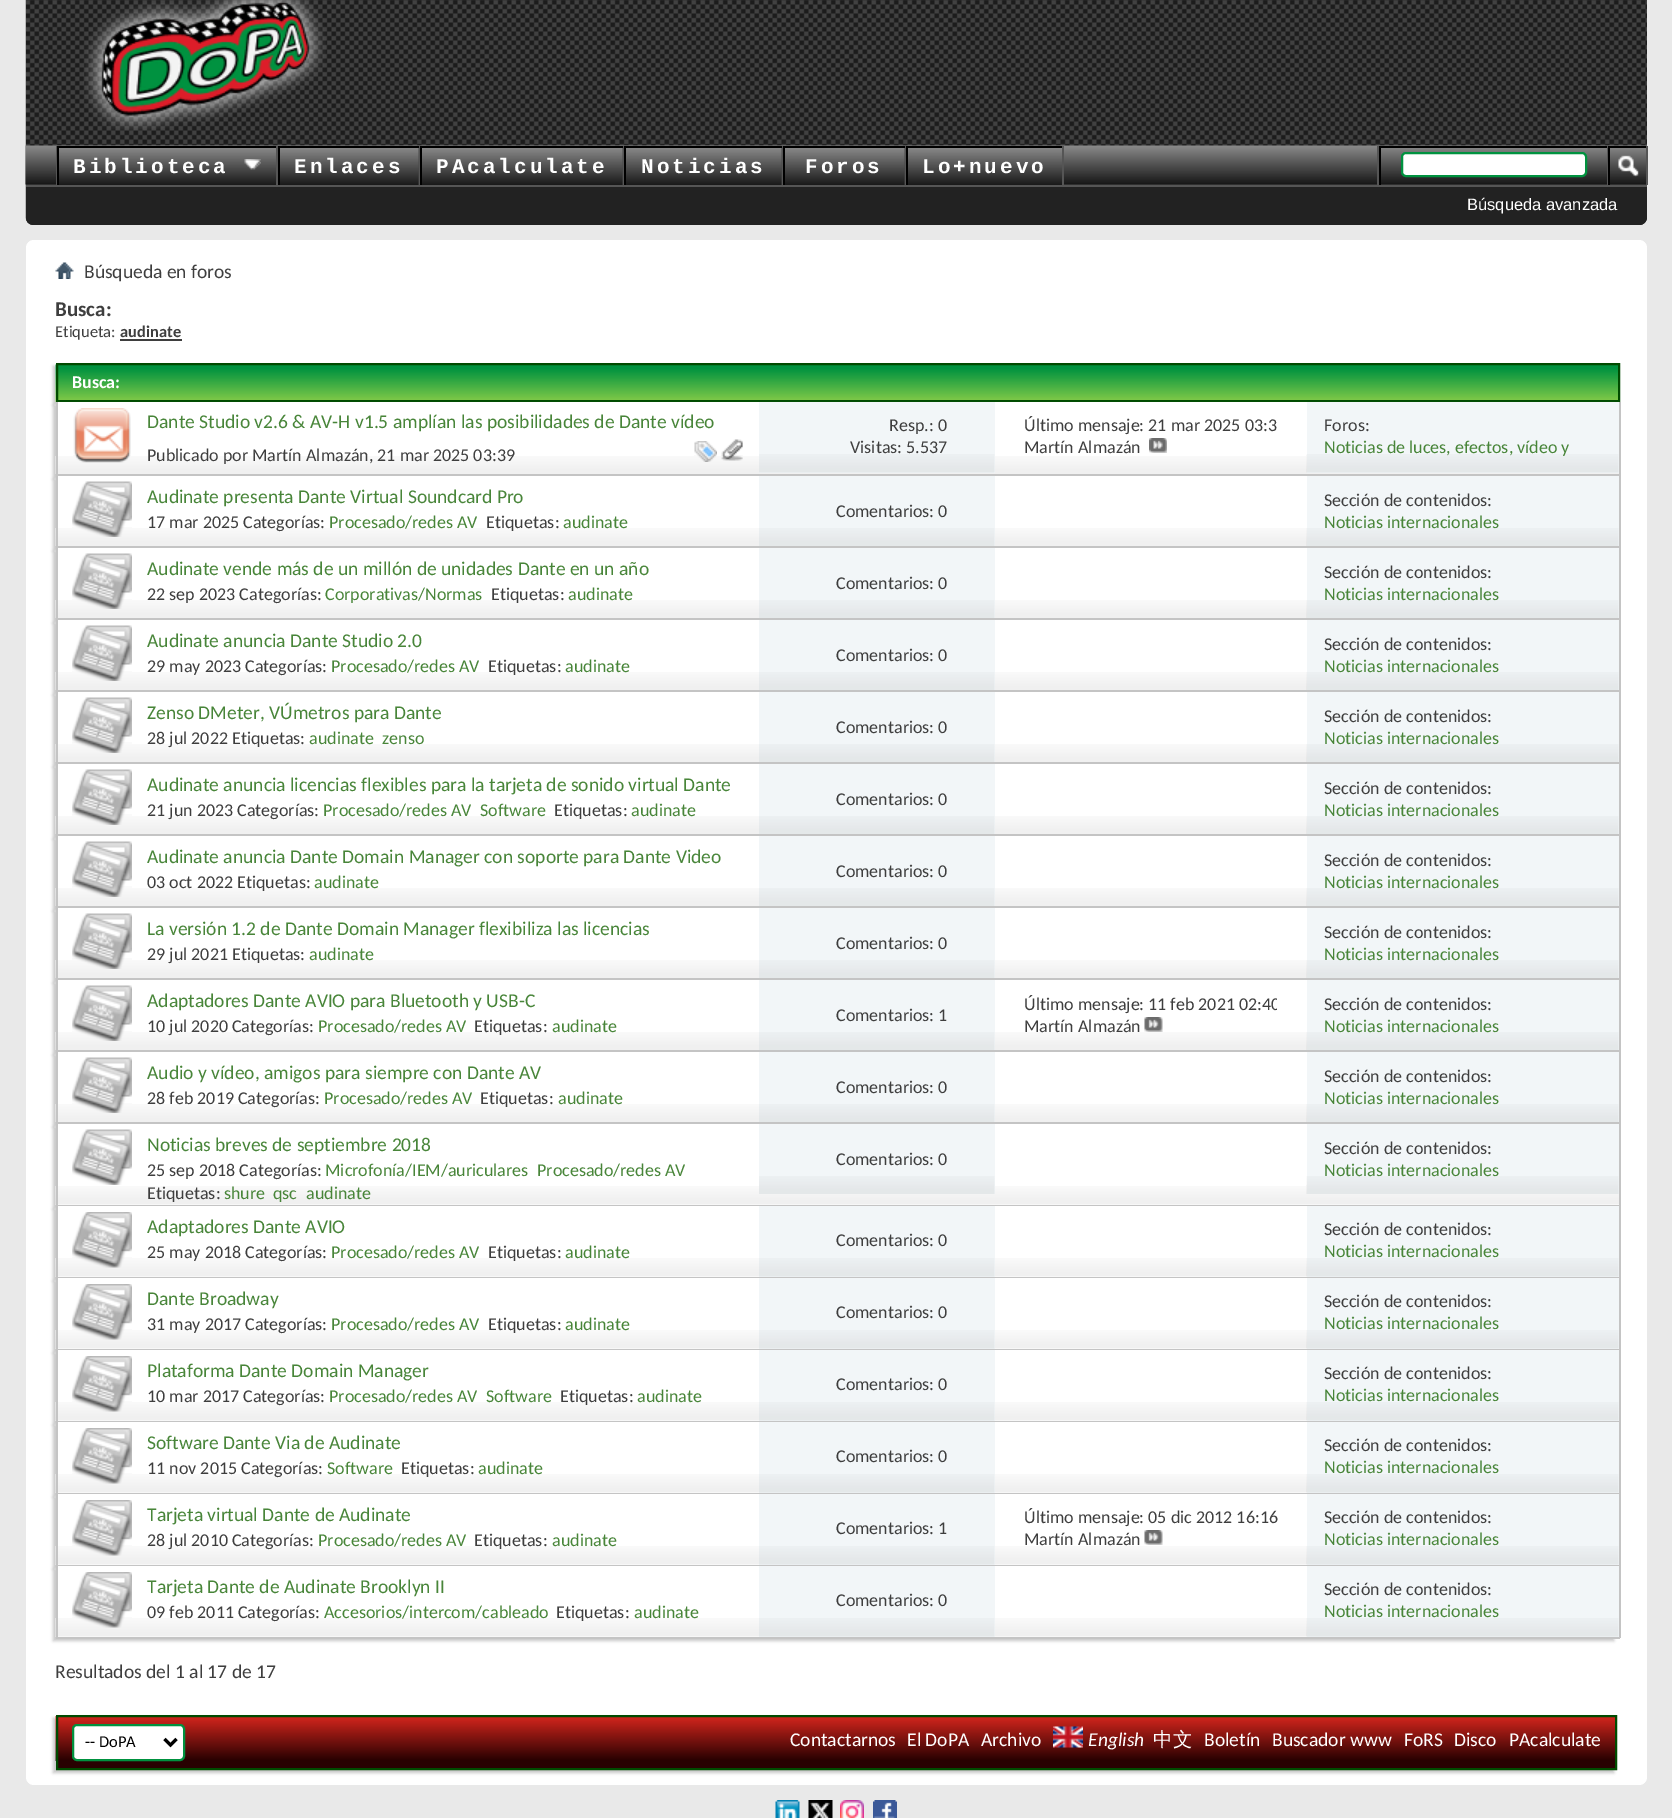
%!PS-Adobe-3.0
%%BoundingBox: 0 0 1672 1818
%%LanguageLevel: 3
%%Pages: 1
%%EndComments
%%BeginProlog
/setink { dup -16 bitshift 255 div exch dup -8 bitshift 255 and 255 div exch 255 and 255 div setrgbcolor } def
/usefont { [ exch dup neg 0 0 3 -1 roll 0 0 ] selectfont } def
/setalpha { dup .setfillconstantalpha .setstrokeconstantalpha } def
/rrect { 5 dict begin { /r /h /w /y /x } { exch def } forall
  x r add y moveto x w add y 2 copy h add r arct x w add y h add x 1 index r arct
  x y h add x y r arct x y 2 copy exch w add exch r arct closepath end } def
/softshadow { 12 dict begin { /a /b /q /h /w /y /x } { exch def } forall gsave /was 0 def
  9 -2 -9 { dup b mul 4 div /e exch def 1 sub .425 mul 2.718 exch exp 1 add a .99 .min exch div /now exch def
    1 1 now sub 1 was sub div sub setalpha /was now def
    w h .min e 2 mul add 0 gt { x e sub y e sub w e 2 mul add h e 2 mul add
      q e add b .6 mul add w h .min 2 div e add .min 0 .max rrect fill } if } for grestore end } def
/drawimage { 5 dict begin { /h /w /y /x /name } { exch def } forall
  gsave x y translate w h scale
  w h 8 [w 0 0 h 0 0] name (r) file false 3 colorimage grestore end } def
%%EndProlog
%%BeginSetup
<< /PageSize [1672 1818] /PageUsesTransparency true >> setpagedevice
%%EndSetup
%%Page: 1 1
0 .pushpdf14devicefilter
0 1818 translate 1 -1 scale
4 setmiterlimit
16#E9E9E9 setink
0 0 1672 1818 rectfill
(img1.raw) 25 0 1622 225 drawimage
(img2.raw) 83 0 243 131 drawimage
16#222222 setink
26 146 moveto 1647 146 lineto 1647 217 lineto 1647 221.5 1643.5 225 1639 225 curveto 34 225 lineto 29.5 225 26 221.5 26 217 curveto closepath fill
16#494949 setink
26 184 1620 1 rectfill
(img3.raw) 25 145 1622 40 drawimage
16#555555 setink
276 146 2 40 rectfill
56 146 1 40 rectfill
(img4.raw) 59 148 217 37 drawimage
16#000000 setink
57 146 219 2 rectfill
57 146 2 40 rectfill
/LiberationMono-Bold 21 usefont
16#FFFFFF setink
73 173 moveto 3 0 (Biblioteca) ashow
(img5.raw) 244 159 17 11 drawimage
16#555555 setink
419 146 1 40 rectfill
16#494949 setink
418 148 1 37 rectfill
(img6.raw) 280 148 139 37 drawimage
16#000000 setink
278 146 141 2 rectfill
278 146 2 40 rectfill
16#FFFFFF setink
294 173 moveto 3 0 (Enlaces) ashow
16#555555 setink
623 146 1 40 rectfill
16#494949 setink
622 148 1 37 rectfill
(img7.raw) 422 148 201 37 drawimage
16#000000 setink
420 146 203 2 rectfill
420 146 2 40 rectfill
16#FFFFFF setink
436 173 moveto 3 0 (PAcalculate) ashow
16#555555 setink
782 146 1 40 rectfill
16#494949 setink
781 148 1 37 rectfill
(img8.raw) 626 148 156 37 drawimage
16#000000 setink
624 146 158 2 rectfill
624 146 2 40 rectfill
16#FFFFFF setink
641 173 moveto 3 0 (Noticias) ashow
16#555555 setink
905 146 1 40 rectfill
16#494949 setink
904 148 1 37 rectfill
(img9.raw) 785 148 120 37 drawimage
16#000000 setink
783 146 122 2 rectfill
783 146 2 40 rectfill
16#FFFFFF setink
805 173 moveto 3 0 (Foros) ashow
[
    [1062 146 2 40 16#555555]
    [906 146 156 2 16#000000]
    [906 146 2 40 16#000000]
    [26 185 1621 2 16#555555]
] { aload pop setink rectfill } forall
(img10.raw) 908 148 154 37 drawimage
16#FFFFFF setink
922 173 moveto 3 0 (Lo+nuevo) ashow
[
    [1377 146 2 39 16#555555]
    [1379 146 228 2 16#000000]
    [1379 146 2 39 16#000000]
] { aload pop setink rectfill } forall
16#FFFFFF setink
1402 153 184 23 4 rrect gsave fill grestore
16#00923F setink
2 setlinewidth
stroke
[
    [1646 146 2 39 16#555555]
    [1607 146 1 39 16#555555]
    [1608 146 38 2 16#000000]
    [1608 146 2 39 16#000000]
] { aload pop setink rectfill } forall
(img11.raw) 1618 155 21 22 drawimage
/LiberationSans-Regular 16.5 usefont
16#FFFFFF setink
1467 210 moveto (Búsqueda avanzada) show
26 240 1621 1545 8 rrect fill
(img12.raw) 55 262 19 17 drawimage
/Carlito-Regular 19.5 usefont
16#3E3E3E setink
84 278 moveto (Búsqueda en foros) show
/Carlito-Bold 21 usefont
55 316 moveto (Busca:) show
/Carlito-Regular 16.5 usefont
55 337 moveto (Etiqueta:) show
/Carlito-Bold 16.5 usefont
120 337 moveto (audinate) show
120 339 62 2 rectfill
16#C8C8C8 setink
53 366 1564 39 0 1.5 1 softshadow
(img13.raw) 55 364 1563 38 drawimage
16#004B00 setink
57 364 1562 37 rectstroke
/Carlito-Bold 18 usefont
16#FFFFFF setink
72 388 moveto (Busca:) show
16#C8C8C8 setink
53 405 1561 74 0 1.5 1 softshadow
16#FFFFFF setink
58 402 1561 72 rectfill
(img14.raw) 55 456 1564 18 drawimage
[
    [1619 402 2 74 16#C4C4C4]
    [56 474 1564 2 16#C4C4C4]
    [56 402 2 74 16#C4C4C4]
] { aload pop setink rectfill } forall
(img15.raw) 73 408 58 55 drawimage
/Carlito-Regular 19.5 usefont
16#488539 setink
147 428 moveto (Dante Studio v2.6 & AV-H v1.5 amplían las posibilidades de Dante vídeo) show
/Carlito-Regular 18 usefont
16#3E3E3E setink
147 461 moveto (Publicado por Martín Almazán, 21 mar 2025 03:39) show
(img16.raw) 694 441 23 21 drawimage
(img17.raw) 721 439 22 22 drawimage
16#F2F6F8 setink
759 402 236 71 rectfill
(img18.raw) 759 454 236 19 drawimage
16#3E3E3E setink
[
    [(Resp.: 0) 889 431]
    [(Visitas: 5.537) 850 453]
    [(Último mensaje: 21 mar 2025 03:3) 1024 431]
    [(Martín Almazán) 1024 453]
] { aload pop moveto show } forall
(img19.raw) 1149 438 18 15 drawimage
16#F2F6F8 setink
1307 402 312 71 rectfill
(img20.raw) 1306 454 313 19 drawimage
16#3E3E3E setink
1324 431 moveto (Foros:) show
16#488539 setink
1324 453 moveto (Noticias de luces, efectos, vídeo y) show
16#C8C8C8 setink
53 479 1561 72 0 1.5 1 softshadow
16#FFFFFF setink
58 476 1249 70 rectfill
(img21.raw) 55 528 1252 18 drawimage
[
    [1619 476 2 72 16#C4C4C4]
    [56 546 1564 2 16#C4C4C4]
    [56 476 2 72 16#C4C4C4]
] { aload pop setink rectfill } forall
(img22.raw) 72 481 60 56 drawimage
/Carlito-Regular 19.5 usefont
16#488539 setink
147 503 moveto (Audinate presenta Dante Virtual Soundcard Pro) show
/Carlito-Regular 18 usefont
16#3E3E3E setink
147 528 moveto (17 mar 2025 Categorías:) show
16#488539 setink
329 528 moveto (Procesado/redes AV) show
16#3E3E3E setink
486 528 moveto (Etiquetas:) show
16#488539 setink
563 528 moveto (audinate) show
16#F2F6F8 setink
759 476 236 70 rectfill
(img23.raw) 759 528 236 18 drawimage
16#3E3E3E setink
836 517 moveto (Comentarios: 0) show
16#F2F6F8 setink
1307 476 312 70 rectfill
(img24.raw) 1306 528 313 18 drawimage
16#3E3E3E setink
1324 506 moveto (Sección de contenidos:) show
16#488539 setink
1324 528 moveto (Noticias internacionales) show
16#C8C8C8 setink
53 551 1561 72 0 1.5 1 softshadow
16#FFFFFF setink
58 548 1249 70 rectfill
(img25.raw) 55 600 1252 18 drawimage
[
    [1619 548 2 72 16#C4C4C4]
    [56 618 1564 2 16#C4C4C4]
    [56 548 2 72 16#C4C4C4]
] { aload pop setink rectfill } forall
(img26.raw) 72 553 60 56 drawimage
/Carlito-Regular 19.5 usefont
16#488539 setink
147 575 moveto (Audinate vende más de un millón de unidades Dante en un año) show
/Carlito-Regular 18 usefont
16#3E3E3E setink
147 600 moveto (22 sep 2023 Categorías:) show
16#488539 setink
325 600 moveto (Corporativas/Normas) show
16#3E3E3E setink
491 600 moveto (Etiquetas:) show
16#488539 setink
568 600 moveto (audinate) show
16#F2F6F8 setink
759 548 236 70 rectfill
(img27.raw) 759 600 236 18 drawimage
16#3E3E3E setink
836 589 moveto (Comentarios: 0) show
16#F2F6F8 setink
1307 548 312 70 rectfill
(img28.raw) 1306 600 313 18 drawimage
16#3E3E3E setink
1324 578 moveto (Sección de contenidos:) show
16#488539 setink
1324 600 moveto (Noticias internacionales) show
16#C8C8C8 setink
53 623 1561 72 0 1.5 1 softshadow
16#FFFFFF setink
58 620 1249 70 rectfill
(img29.raw) 55 672 1252 18 drawimage
[
    [1619 620 2 72 16#C4C4C4]
    [56 690 1564 2 16#C4C4C4]
    [56 620 2 72 16#C4C4C4]
] { aload pop setink rectfill } forall
(img22.raw) 72 625 60 56 drawimage
/Carlito-Regular 19.5 usefont
16#488539 setink
147 647 moveto (Audinate anuncia Dante Studio 2.0) show
/Carlito-Regular 18 usefont
16#3E3E3E setink
147 672 moveto (29 may 2023 Categorías:) show
16#488539 setink
331 672 moveto (Procesado/redes AV) show
16#3E3E3E setink
488 672 moveto (Etiquetas:) show
16#488539 setink
565 672 moveto (audinate) show
16#F2F6F8 setink
759 620 236 70 rectfill
(img30.raw) 759 672 236 18 drawimage
16#3E3E3E setink
836 661 moveto (Comentarios: 0) show
16#F2F6F8 setink
1307 620 312 70 rectfill
(img31.raw) 1306 672 313 18 drawimage
16#3E3E3E setink
1324 650 moveto (Sección de contenidos:) show
16#488539 setink
1324 672 moveto (Noticias internacionales) show
16#C8C8C8 setink
53 695 1561 72 0 1.5 1 softshadow
16#FFFFFF setink
58 692 1249 70 rectfill
(img25.raw) 55 744 1252 18 drawimage
[
    [1619 692 2 72 16#C4C4C4]
    [56 762 1564 2 16#C4C4C4]
    [56 692 2 72 16#C4C4C4]
] { aload pop setink rectfill } forall
(img32.raw) 72 697 60 56 drawimage
/Carlito-Regular 19.5 usefont
16#488539 setink
147 719 moveto (Zenso DMeter, VÚmetros para Dante) show
/Carlito-Regular 18 usefont
16#3E3E3E setink
147 744 moveto (28 jul 2022 Etiquetas:) show
16#488539 setink
309 744 moveto (audinate) show
382 744 moveto (zenso) show
16#F2F6F8 setink
759 692 236 70 rectfill
(img27.raw) 759 744 236 18 drawimage
16#3E3E3E setink
836 733 moveto (Comentarios: 0) show
16#F2F6F8 setink
1307 692 312 70 rectfill
(img28.raw) 1306 744 313 18 drawimage
16#3E3E3E setink
1324 722 moveto (Sección de contenidos:) show
16#488539 setink
1324 744 moveto (Noticias internacionales) show
16#C8C8C8 setink
53 767 1561 72 0 1.5 1 softshadow
16#FFFFFF setink
58 764 1249 70 rectfill
(img33.raw) 55 816 1252 18 drawimage
[
    [1619 764 2 72 16#C4C4C4]
    [56 834 1564 2 16#C4C4C4]
    [56 764 2 72 16#C4C4C4]
] { aload pop setink rectfill } forall
(img34.raw) 72 769 60 56 drawimage
/Carlito-Regular 19.5 usefont
16#488539 setink
147 791 moveto (Audinate anuncia licencias flexibles para la tarjeta de sonido virtual Dante) show
/Carlito-Regular 18 usefont
16#3E3E3E setink
147 816 moveto (21 jun 2023 Categorías:) show
16#488539 setink
323 816 moveto (Procesado/redes AV) show
480 816 moveto (Software) show
16#3E3E3E setink
554 816 moveto (Etiquetas:) show
16#488539 setink
631 816 moveto (audinate) show
16#F2F6F8 setink
759 764 236 70 rectfill
(img35.raw) 759 816 236 18 drawimage
16#3E3E3E setink
836 805 moveto (Comentarios: 0) show
16#F2F6F8 setink
1307 764 312 70 rectfill
(img36.raw) 1306 816 313 18 drawimage
16#3E3E3E setink
1324 794 moveto (Sección de contenidos:) show
16#488539 setink
1324 816 moveto (Noticias internacionales) show
16#C8C8C8 setink
53 839 1561 72 0 1.5 1 softshadow
16#FFFFFF setink
58 836 1249 70 rectfill
(img33.raw) 55 888 1252 18 drawimage
[
    [1619 836 2 72 16#C4C4C4]
    [56 906 1564 2 16#C4C4C4]
    [56 836 2 72 16#C4C4C4]
] { aload pop setink rectfill } forall
(img34.raw) 72 841 60 56 drawimage
/Carlito-Regular 19.5 usefont
16#488539 setink
147 863 moveto (Audinate anuncia Dante Domain Manager con soporte para Dante Video) show
/Carlito-Regular 18 usefont
16#3E3E3E setink
147 888 moveto (03 oct 2022 Etiquetas:) show
16#488539 setink
314 888 moveto (audinate) show
16#F2F6F8 setink
759 836 236 70 rectfill
(img35.raw) 759 888 236 18 drawimage
16#3E3E3E setink
836 877 moveto (Comentarios: 0) show
16#F2F6F8 setink
1307 836 312 70 rectfill
(img36.raw) 1306 888 313 18 drawimage
16#3E3E3E setink
1324 866 moveto (Sección de contenidos:) show
16#488539 setink
1324 888 moveto (Noticias internacionales) show
16#C8C8C8 setink
53 911 1561 72 0 1.5 1 softshadow
16#FFFFFF setink
58 908 1249 70 rectfill
(img25.raw) 55 960 1252 18 drawimage
[
    [1619 908 2 72 16#C4C4C4]
    [56 978 1564 2 16#C4C4C4]
    [56 908 2 72 16#C4C4C4]
] { aload pop setink rectfill } forall
(img32.raw) 72 913 60 56 drawimage
/Carlito-Regular 19.5 usefont
16#488539 setink
147 935 moveto (La versión 1.2 de Dante Domain Manager flexibiliza las licencias) show
/Carlito-Regular 18 usefont
16#3E3E3E setink
147 960 moveto (29 jul 2021 Etiquetas:) show
16#488539 setink
309 960 moveto (audinate) show
16#F2F6F8 setink
759 908 236 70 rectfill
(img27.raw) 759 960 236 18 drawimage
16#3E3E3E setink
836 949 moveto (Comentarios: 0) show
16#F2F6F8 setink
1307 908 312 70 rectfill
(img28.raw) 1306 960 313 18 drawimage
16#3E3E3E setink
1324 938 moveto (Sección de contenidos:) show
16#488539 setink
1324 960 moveto (Noticias internacionales) show
16#C8C8C8 setink
53 983 1561 72 0 1.5 1 softshadow
16#FFFFFF setink
58 980 1249 70 rectfill
(img25.raw) 55 1032 1252 18 drawimage
[
    [1619 980 2 72 16#C4C4C4]
    [56 1050 1564 2 16#C4C4C4]
    [56 980 2 72 16#C4C4C4]
] { aload pop setink rectfill } forall
(img26.raw) 72 985 60 56 drawimage
/Carlito-Regular 19.5 usefont
16#488539 setink
147 1007 moveto (Adaptadores Dante AVIO para Bluetooth y USB-C) show
/Carlito-Regular 18 usefont
16#3E3E3E setink
147 1032 moveto (10 jul 2020 Categorías:) show
16#488539 setink
318 1032 moveto (Procesado/redes AV) show
16#3E3E3E setink
474 1032 moveto (Etiquetas:) show
16#488539 setink
552 1032 moveto (audinate) show
16#F2F6F8 setink
759 980 236 70 rectfill
(img27.raw) 759 1032 236 18 drawimage
16#3E3E3E setink
836 1021 moveto (Comentarios: 1) show
1024 1010 moveto (Último mensaje:) show
gsave
1025 993 252 23 rectclip
1148 1010 moveto (11 feb 2021 02:40) show
grestore
1024 1032 moveto (Martín Almazán) show
(img37.raw) 1144 1017 19 15 drawimage
16#F2F6F8 setink
1307 980 312 70 rectfill
(img28.raw) 1306 1032 313 18 drawimage
16#3E3E3E setink
1324 1010 moveto (Sección de contenidos:) show
16#488539 setink
1324 1032 moveto (Noticias internacionales) show
16#C8C8C8 setink
53 1055 1561 72 0 1.5 1 softshadow
16#FFFFFF setink
58 1052 1249 70 rectfill
(img29.raw) 55 1104 1252 18 drawimage
[
    [1619 1052 2 72 16#C4C4C4]
    [56 1122 1564 2 16#C4C4C4]
    [56 1052 2 72 16#C4C4C4]
] { aload pop setink rectfill } forall
(img22.raw) 72 1057 60 56 drawimage
/Carlito-Regular 19.5 usefont
16#488539 setink
147 1079 moveto (Audio y vídeo, amigos para siempre con Dante AV) show
/Carlito-Regular 18 usefont
16#3E3E3E setink
147 1104 moveto (28 feb 2019 Categorías:) show
16#488539 setink
324 1104 moveto (Procesado/redes AV) show
16#3E3E3E setink
480 1104 moveto (Etiquetas:) show
16#488539 setink
558 1104 moveto (audinate) show
16#F2F6F8 setink
759 1052 236 70 rectfill
(img30.raw) 759 1104 236 18 drawimage
16#3E3E3E setink
836 1093 moveto (Comentarios: 0) show
16#F2F6F8 setink
1307 1052 312 70 rectfill
(img31.raw) 1306 1104 313 18 drawimage
16#3E3E3E setink
1324 1082 moveto (Sección de contenidos:) show
16#488539 setink
1324 1104 moveto (Noticias internacionales) show
16#C8C8C8 setink
53 1127 1561 82 0 1.5 1 softshadow
16#FFFFFF setink
58 1124 1558 81 rectfill
(img38.raw) 55 1186 1564 19 drawimage
[
    [1619 1124 2 82 16#C4C4C4]
    [56 1205 1564 1 16#C4C4C4]
    [56 1124 2 82 16#C4C4C4]
] { aload pop setink rectfill } forall
(img39.raw) 72 1129 60 56 drawimage
/Carlito-Regular 19.5 usefont
16#488539 setink
147 1151 moveto (Noticias breves de septiembre 2018) show
/Carlito-Regular 18 usefont
16#3E3E3E setink
147 1176 moveto (25 sep 2018 Categorías:) show
16#488539 setink
325 1176 moveto (Microfonía/IEM/auriculares) show
537 1176 moveto (Procesado/redes AV) show
16#3E3E3E setink
147 1199 moveto (Etiquetas:) show
16#488539 setink
[
    [(shure) 224 1199]
    [(qsc) 273 1199]
    [(audinate) 306 1199]
] { aload pop moveto show } forall
16#F2F6F8 setink
759 1124 236 70 rectfill
(img27.raw) 759 1176 236 18 drawimage
16#3E3E3E setink
836 1165 moveto (Comentarios: 0) show
16#F2F6F8 setink
1307 1124 312 70 rectfill
(img40.raw) 1306 1176 313 18 drawimage
16#3E3E3E setink
1324 1154 moveto (Sección de contenidos:) show
16#488539 setink
1324 1176 moveto (Noticias internacionales) show
16#C8C8C8 setink
53 1209 1561 72 0 1.5 1 softshadow
16#FFFFFF setink
58 1206 1249 71 rectfill
(img41.raw) 55 1258 1252 19 drawimage
[
    [1619 1206 2 72 16#C4C4C4]
    [56 1277 1564 1 16#C4C4C4]
    [56 1206 2 72 16#C4C4C4]
] { aload pop setink rectfill } forall
(img42.raw) 72 1212 60 56 drawimage
/Carlito-Regular 19.5 usefont
16#488539 setink
147 1233 moveto (Adaptadores Dante AVIO) show
/Carlito-Regular 18 usefont
16#3E3E3E setink
147 1258 moveto (25 may 2018 Categorías:) show
16#488539 setink
331 1258 moveto (Procesado/redes AV) show
16#3E3E3E setink
488 1258 moveto (Etiquetas:) show
16#488539 setink
565 1258 moveto (audinate) show
16#F2F6F8 setink
759 1206 236 71 rectfill
(img18.raw) 759 1258 236 19 drawimage
16#3E3E3E setink
836 1246 moveto (Comentarios: 0) show
16#F2F6F8 setink
1307 1206 312 71 rectfill
(img43.raw) 1306 1258 313 19 drawimage
16#3E3E3E setink
1324 1235 moveto (Sección de contenidos:) show
16#488539 setink
1324 1257 moveto (Noticias internacionales) show
16#C8C8C8 setink
53 1281 1561 72 0 1.5 1 softshadow
16#FFFFFF setink
58 1278 1249 71 rectfill
(img41.raw) 55 1330 1252 19 drawimage
[
    [1619 1278 2 72 16#C4C4C4]
    [56 1349 1564 1 16#C4C4C4]
    [56 1278 2 72 16#C4C4C4]
] { aload pop setink rectfill } forall
(img42.raw) 72 1284 60 56 drawimage
/Carlito-Regular 19.5 usefont
16#488539 setink
147 1305 moveto (Dante Broadway) show
/Carlito-Regular 18 usefont
16#3E3E3E setink
147 1330 moveto (31 may 2017 Categorías:) show
16#488539 setink
331 1330 moveto (Procesado/redes AV) show
16#3E3E3E setink
488 1330 moveto (Etiquetas:) show
16#488539 setink
565 1330 moveto (audinate) show
16#F2F6F8 setink
759 1278 236 71 rectfill
(img18.raw) 759 1330 236 19 drawimage
16#3E3E3E setink
836 1318 moveto (Comentarios: 0) show
16#F2F6F8 setink
1307 1278 312 71 rectfill
(img43.raw) 1306 1330 313 19 drawimage
16#3E3E3E setink
1324 1307 moveto (Sección de contenidos:) show
16#488539 setink
1324 1329 moveto (Noticias internacionales) show
16#C8C8C8 setink
53 1353 1561 72 0 1.5 1 softshadow
16#FFFFFF setink
58 1350 1249 71 rectfill
(img41.raw) 55 1402 1252 19 drawimage
[
    [1619 1350 2 72 16#C4C4C4]
    [56 1421 1564 1 16#C4C4C4]
    [56 1350 2 72 16#C4C4C4]
] { aload pop setink rectfill } forall
(img42.raw) 72 1356 60 56 drawimage
/Carlito-Regular 19.5 usefont
16#488539 setink
147 1377 moveto (Plataforma Dante Domain Manager) show
/Carlito-Regular 18 usefont
16#3E3E3E setink
147 1402 moveto (10 mar 2017 Categorías:) show
16#488539 setink
329 1402 moveto (Procesado/redes AV) show
486 1402 moveto (Software) show
16#3E3E3E setink
560 1402 moveto (Etiquetas:) show
16#488539 setink
637 1402 moveto (audinate) show
16#F2F6F8 setink
759 1350 236 71 rectfill
(img18.raw) 759 1402 236 19 drawimage
16#3E3E3E setink
836 1390 moveto (Comentarios: 0) show
16#F2F6F8 setink
1307 1350 312 71 rectfill
(img43.raw) 1306 1402 313 19 drawimage
16#3E3E3E setink
1324 1379 moveto (Sección de contenidos:) show
16#488539 setink
1324 1401 moveto (Noticias internacionales) show
16#C8C8C8 setink
53 1425 1561 72 0 1.5 1 softshadow
16#FFFFFF setink
58 1422 1249 71 rectfill
(img41.raw) 55 1474 1252 19 drawimage
[
    [1619 1422 2 72 16#C4C4C4]
    [56 1493 1564 1 16#C4C4C4]
    [56 1422 2 72 16#C4C4C4]
] { aload pop setink rectfill } forall
(img42.raw) 72 1428 60 56 drawimage
/Carlito-Regular 19.5 usefont
16#488539 setink
147 1449 moveto (Software Dante Via de Audinate) show
/Carlito-Regular 18 usefont
16#3E3E3E setink
147 1474 moveto (11 nov 2015 Categorías:) show
16#488539 setink
327 1474 moveto (Software) show
16#3E3E3E setink
401 1474 moveto (Etiquetas:) show
16#488539 setink
478 1474 moveto (audinate) show
16#F2F6F8 setink
759 1422 236 71 rectfill
(img18.raw) 759 1474 236 19 drawimage
16#3E3E3E setink
836 1462 moveto (Comentarios: 0) show
16#F2F6F8 setink
1307 1422 312 71 rectfill
(img43.raw) 1306 1474 313 19 drawimage
16#3E3E3E setink
1324 1451 moveto (Sección de contenidos:) show
16#488539 setink
1324 1473 moveto (Noticias internacionales) show
16#C8C8C8 setink
53 1497 1561 72 0 1.5 1 softshadow
16#FFFFFF setink
58 1494 1249 71 rectfill
(img41.raw) 55 1546 1252 19 drawimage
[
    [1619 1494 2 72 16#C4C4C4]
    [56 1565 1564 1 16#C4C4C4]
    [56 1494 2 72 16#C4C4C4]
] { aload pop setink rectfill } forall
(img42.raw) 72 1500 60 56 drawimage
/Carlito-Regular 19.5 usefont
16#488539 setink
147 1521 moveto (Tarjeta virtual Dante de Audinate) show
/Carlito-Regular 18 usefont
16#3E3E3E setink
147 1546 moveto (28 jul 2010 Categorías:) show
16#488539 setink
318 1546 moveto (Procesado/redes AV) show
16#3E3E3E setink
474 1546 moveto (Etiquetas:) show
16#488539 setink
552 1546 moveto (audinate) show
16#F2F6F8 setink
759 1494 236 71 rectfill
(img18.raw) 759 1546 236 19 drawimage
16#3E3E3E setink
[
    [(Comentarios: 1) 836 1534]
    [(Último mensaje: 05 dic 2012 16:16) 1024 1523]
    [(Martín Almazán) 1024 1545]
] { aload pop moveto show } forall
(img44.raw) 1144 1530 19 15 drawimage
16#F2F6F8 setink
1307 1494 312 71 rectfill
(img43.raw) 1306 1546 313 19 drawimage
16#3E3E3E setink
1324 1523 moveto (Sección de contenidos:) show
16#488539 setink
1324 1545 moveto (Noticias internacionales) show
16#C8C8C8 setink
53 1569 1561 72 0 1.5 1 softshadow
16#FFFFFF setink
58 1566 1249 71 rectfill
(img41.raw) 55 1618 1252 19 drawimage
[
    [1619 1566 2 72 16#C4C4C4]
    [56 1637 1564 2 16#C4C4C4]
    [56 1566 2 72 16#C4C4C4]
] { aload pop setink rectfill } forall
(img42.raw) 72 1572 60 56 drawimage
/Carlito-Regular 19.5 usefont
16#488539 setink
147 1593 moveto (Tarjeta Dante de Audinate Brooklyn II) show
/Carlito-Regular 18 usefont
16#3E3E3E setink
147 1618 moveto (09 feb 2011 Categorías:) show
16#488539 setink
324 1618 moveto (Accesorios/intercom/cableado) show
16#3E3E3E setink
556 1618 moveto (Etiquetas:) show
16#488539 setink
634 1618 moveto (audinate) show
16#F2F6F8 setink
759 1566 236 71 rectfill
(img18.raw) 759 1618 236 19 drawimage
16#3E3E3E setink
836 1606 moveto (Comentarios: 0) show
16#F2F6F8 setink
1307 1566 312 71 rectfill
(img43.raw) 1306 1618 313 19 drawimage
16#3E3E3E setink
1324 1595 moveto (Sección de contenidos:) show
16#488539 setink
1324 1617 moveto (Noticias internacionales) show
/Carlito-Regular 19.5 usefont
16#3E3E3E setink
55 1678 moveto (Resultados del 1 al 17 de 17) show
16#C8C8C8 setink
53 1718 1561 55 0 1.5 1 softshadow
16#280101 setink
58 1761 1557 7 rectfill
(img45.raw) 55 1716 1560 45 drawimage
16#004B00 setink
57 1716 1559 53 rectstroke
16#FFFFFF setink
73 1725 111 35 4 rrect gsave fill grestore
16#00923F setink
stroke
16#000000 setink
3 setlinewidth
164.5 1739 moveto 170.5 1745 lineto 176.5 1739 lineto stroke
/Carlito-Regular 16.5 usefont
85 1747 moveto (-- DoPA) show
/Carlito-Regular 19.5 usefont
16#FFFFFF setink
[
    [(Contactarnos) 790 1746]
    [(El DoPA) 907 1746]
    [(Archivo) 981 1746]
] { aload pop moveto show } forall
(img46.raw) 1053 1726 30 22 drawimage
/Carlito-Italic 19.5 usefont
1088 1746 moveto (English) show
/WenQuanYiZenHei-Medium 19.5 usefont
1153 1746 moveto (中文) show
/Carlito-Regular 19.5 usefont
[
    [(Boletín) 1204 1746]
    [(Buscador www) 1272 1746]
    [(FoRS) 1404 1746]
    [(Disco) 1454 1746]
    [(PAcalculate) 1509 1746]
] { aload pop moveto show } forall
(img47.raw) 775 1800 25 18 drawimage
(img48.raw) 808 1800 25 18 drawimage
(img49.raw) 840 1800 24 18 drawimage
(img50.raw) 873 1800 24 18 drawimage
.poppdf14devicefilter showpage
%%EOF
